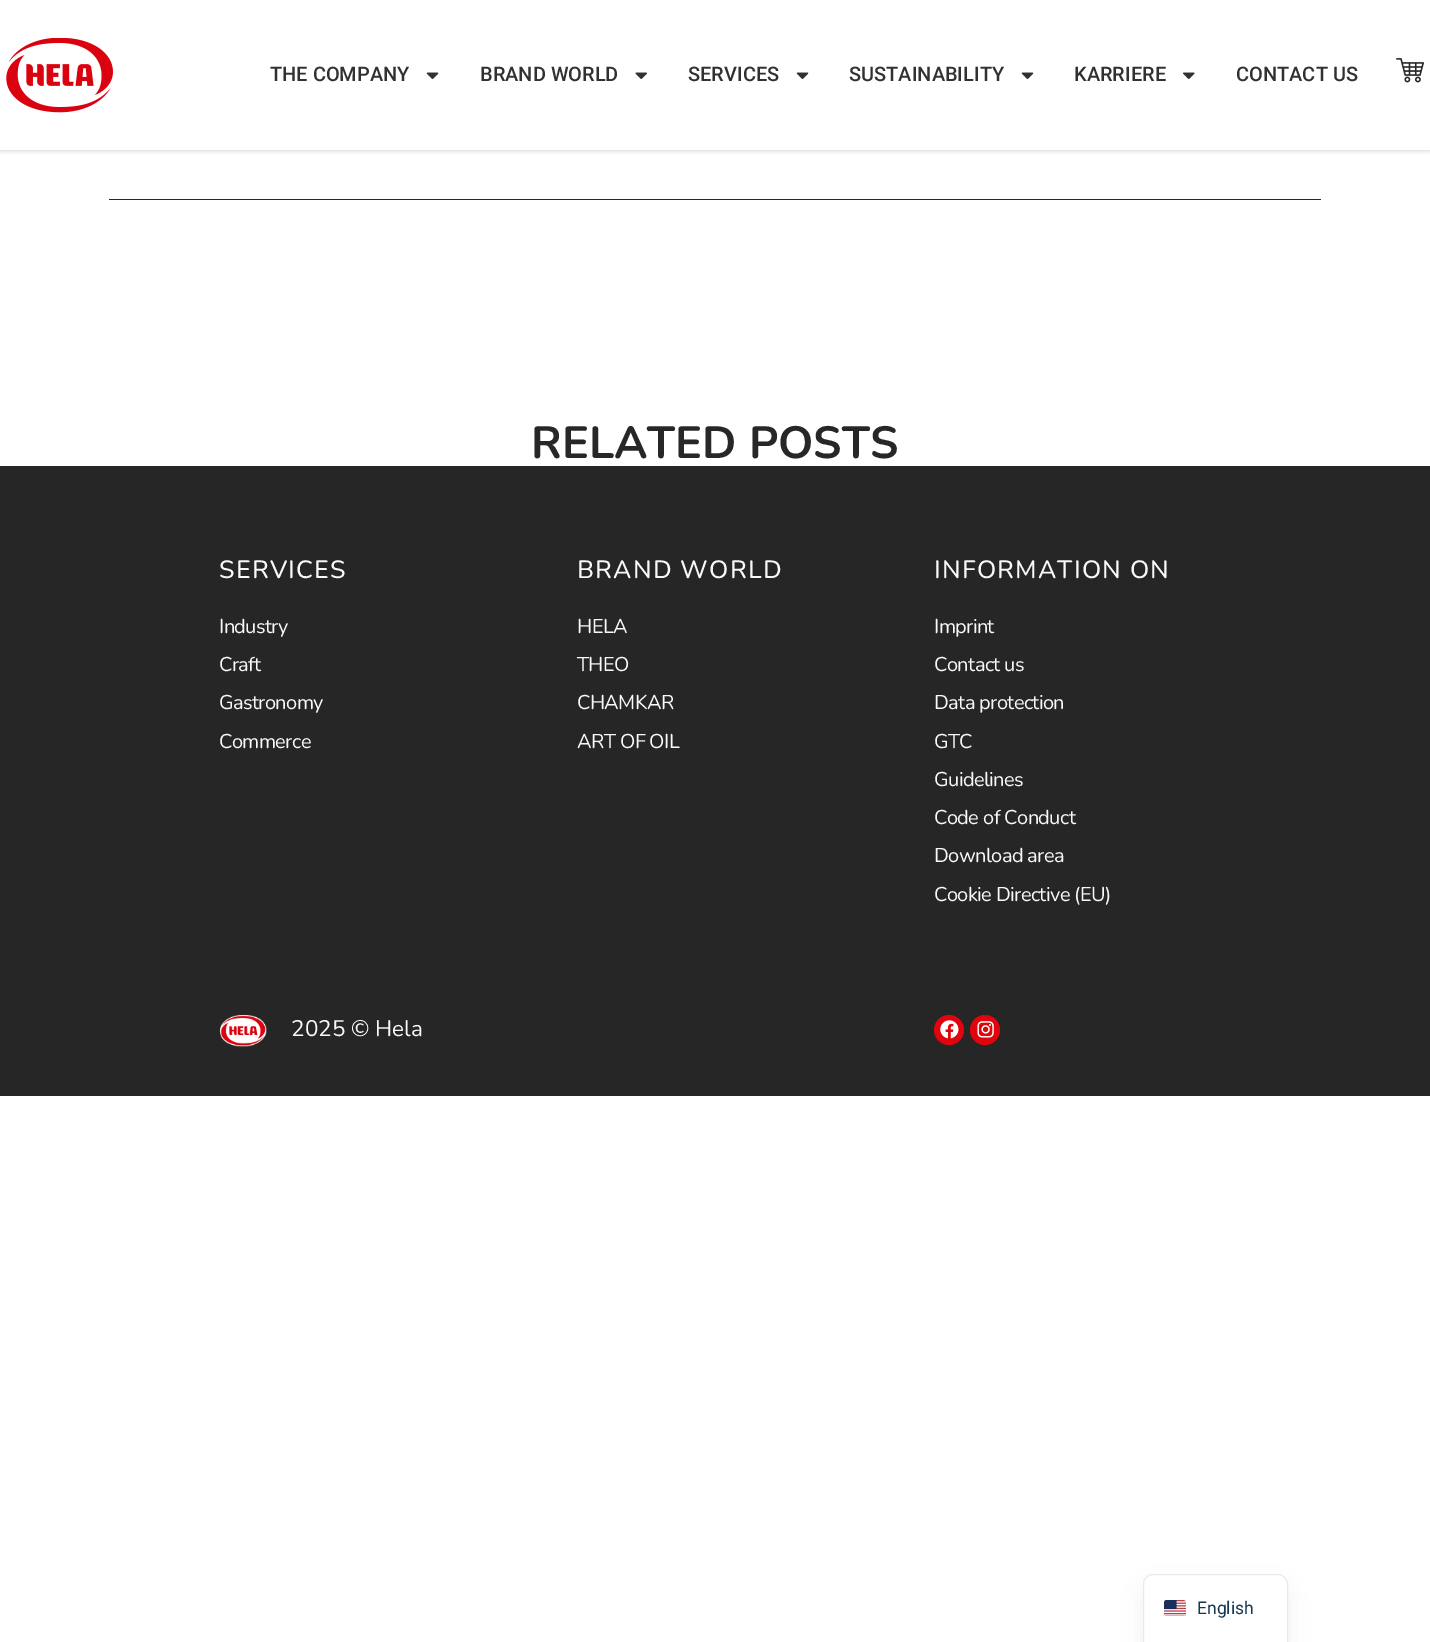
%!PS-Adobe-3.0
%%BoundingBox: 0 0 1430 1642
%%LanguageLevel: 3
%%Pages: 1
%%EndComments
%%BeginProlog
/setink { dup -16 bitshift 255 div exch dup -8 bitshift 255 and 255 div exch 255 and 255 div setrgbcolor } def
/usefont { [ exch dup neg 0 0 3 -1 roll 0 0 ] selectfont } def
/setalpha { dup .setfillconstantalpha .setstrokeconstantalpha } def
/disc { newpath 0 360 arc closepath } def
/rrect { 5 dict begin { /r /h /w /y /x } { exch def } forall
  x r add y moveto x w add y 2 copy h add r arct x w add y h add x 1 index r arct
  x y h add x y r arct x y 2 copy exch w add exch r arct closepath end } def
/softshadow { 12 dict begin { /a /b /q /h /w /y /x } { exch def } forall gsave /was 0 def
  9 -2 -9 { dup b mul 4 div /e exch def 1 sub .425 mul 2.718 exch exp 1 add a .99 .min exch div /now exch def
    1 1 now sub 1 was sub div sub setalpha /was now def
    w h .min e 2 mul add 0 gt { x e sub y e sub w e 2 mul add h e 2 mul add
      q e add b .6 mul add w h .min 2 div e add .min 0 .max rrect fill } if } for grestore end } def
/drawimage { 5 dict begin { /h /w /y /x /name } { exch def } forall
  gsave x y translate w h scale
  w h 8 [w 0 0 h 0 0] name (r) file false 3 colorimage grestore end } def
%%EndProlog
%%BeginSetup
<< /PageSize [1430 1642] /PageUsesTransparency true >> setpagedevice
%%EndSetup
%%Page: 1 1
0 .pushpdf14devicefilter
0 1642 translate 1 -1 scale
4 setmiterlimit
16#FFFFFF setink
0 0 1430 1642 rectfill
gsave
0 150 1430 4 rectclip
16#000000 setink
0 0 1430 150 0 3 0.22 softshadow
grestore
(img1.raw) 6 38 107 75 drawimage
/Roboto-Medium 20 usefont
16#313131 setink
270 81 moveto (THE COMPANY) show
(img2.raw) 426 72 13 7 drawimage
480 81 moveto (BRAND WORLD) show
(img3.raw) 635 72 12 7 drawimage
688 81 moveto (SERVICES) show
(img2.raw) 796 72 13 7 drawimage
849 81 moveto (SUSTAINABILITY) show
(img2.raw) 1021 72 13 7 drawimage
1074 81 moveto (KARRIERE) show
(img4.raw) 1183 72 12 7 drawimage
1236 81 moveto (CONTACT US) show
(img5.raw) 1396 58 28 25 drawimage
16#1C244B setink
109 199 1212 1 rectfill
/Nunito-Bold 45 usefont
16#272727 setink
531 458 moveto (RELATED POSTS) show
16#262626 setink
0 466 1430 630 rectfill
/Nunito-Medium 25 usefont
16#F9F9F9 setink
219 578 moveto 1.25 0 (SERVICES) ashow
/Nunito-Regular 20 usefont
219 633 moveto -0.6 0 (Industry) ashow
219 671 moveto -0.6 0 (Craft) ashow
219 709 moveto -0.6 0 (Gastronomy) ashow
219 748 moveto -0.6 0 (Commerce) ashow
/Nunito-Medium 25 usefont
577 578 moveto 1.25 0 (BRAND WORLD) ashow
/Nunito-Regular 20 usefont
577 633 moveto -0.6 0 (HELA) ashow
577 671 moveto -0.6 0 (THEO) ashow
577 709 moveto -0.6 0 (CHAMKAR) ashow
577 748 moveto -0.6 0 (ART OF OIL) ashow
/Nunito-Medium 25 usefont
934 578 moveto 1.25 0 (INFORMATION ON) ashow
/Nunito-Regular 20 usefont
934 633 moveto -0.6 0 (Imprint) ashow
934 671 moveto -0.6 0 (Contact us) ashow
934 709 moveto -0.6 0 (Data protection) ashow
934 748 moveto -0.6 0 (GTC) ashow
934 786 moveto -0.6 0 (Guidelines) ashow
934 824 moveto -0.6 0 (Code of Conduct) ashow
934 862 moveto -0.6 0 (Download area) ashow
934 901 moveto -0.6 0 (Cookie Directive \(EU\)) ashow
(img6.raw) 220 1015 47 32 drawimage
/Nunito-Regular 22.5 usefont
291 1036 moveto (2025 © Hela) show
16#E0040C setink
949 1030 15 disc fill
(img7.raw) 940 1020 19 19 drawimage
985 1030 15 disc fill
(img8.raw) 977 1021 17 17 drawimage
16#000000 setink
1143 1586 145 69 10 12.5 0.05 softshadow
16#FFFFFF setink
1153 1574.5 moveto 1278 1574.5 lineto 1283 1574.5 1287.5 1579 1287.5 1584 curveto 1287.5 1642.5 lineto 1143.5 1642.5 lineto 1143.5 1584 lineto 1143.5 1579 1148 1574.5 1153 1574.5 curveto closepath gsave fill grestore
16#E7EBEE setink
stroke
(img9.raw) 1164 1600 22 16 drawimage
/Roboto-Regular 17.5 usefont
16#143852 setink
1197 1614 moveto (English) show
.poppdf14devicefilter showpage
%%EOF
